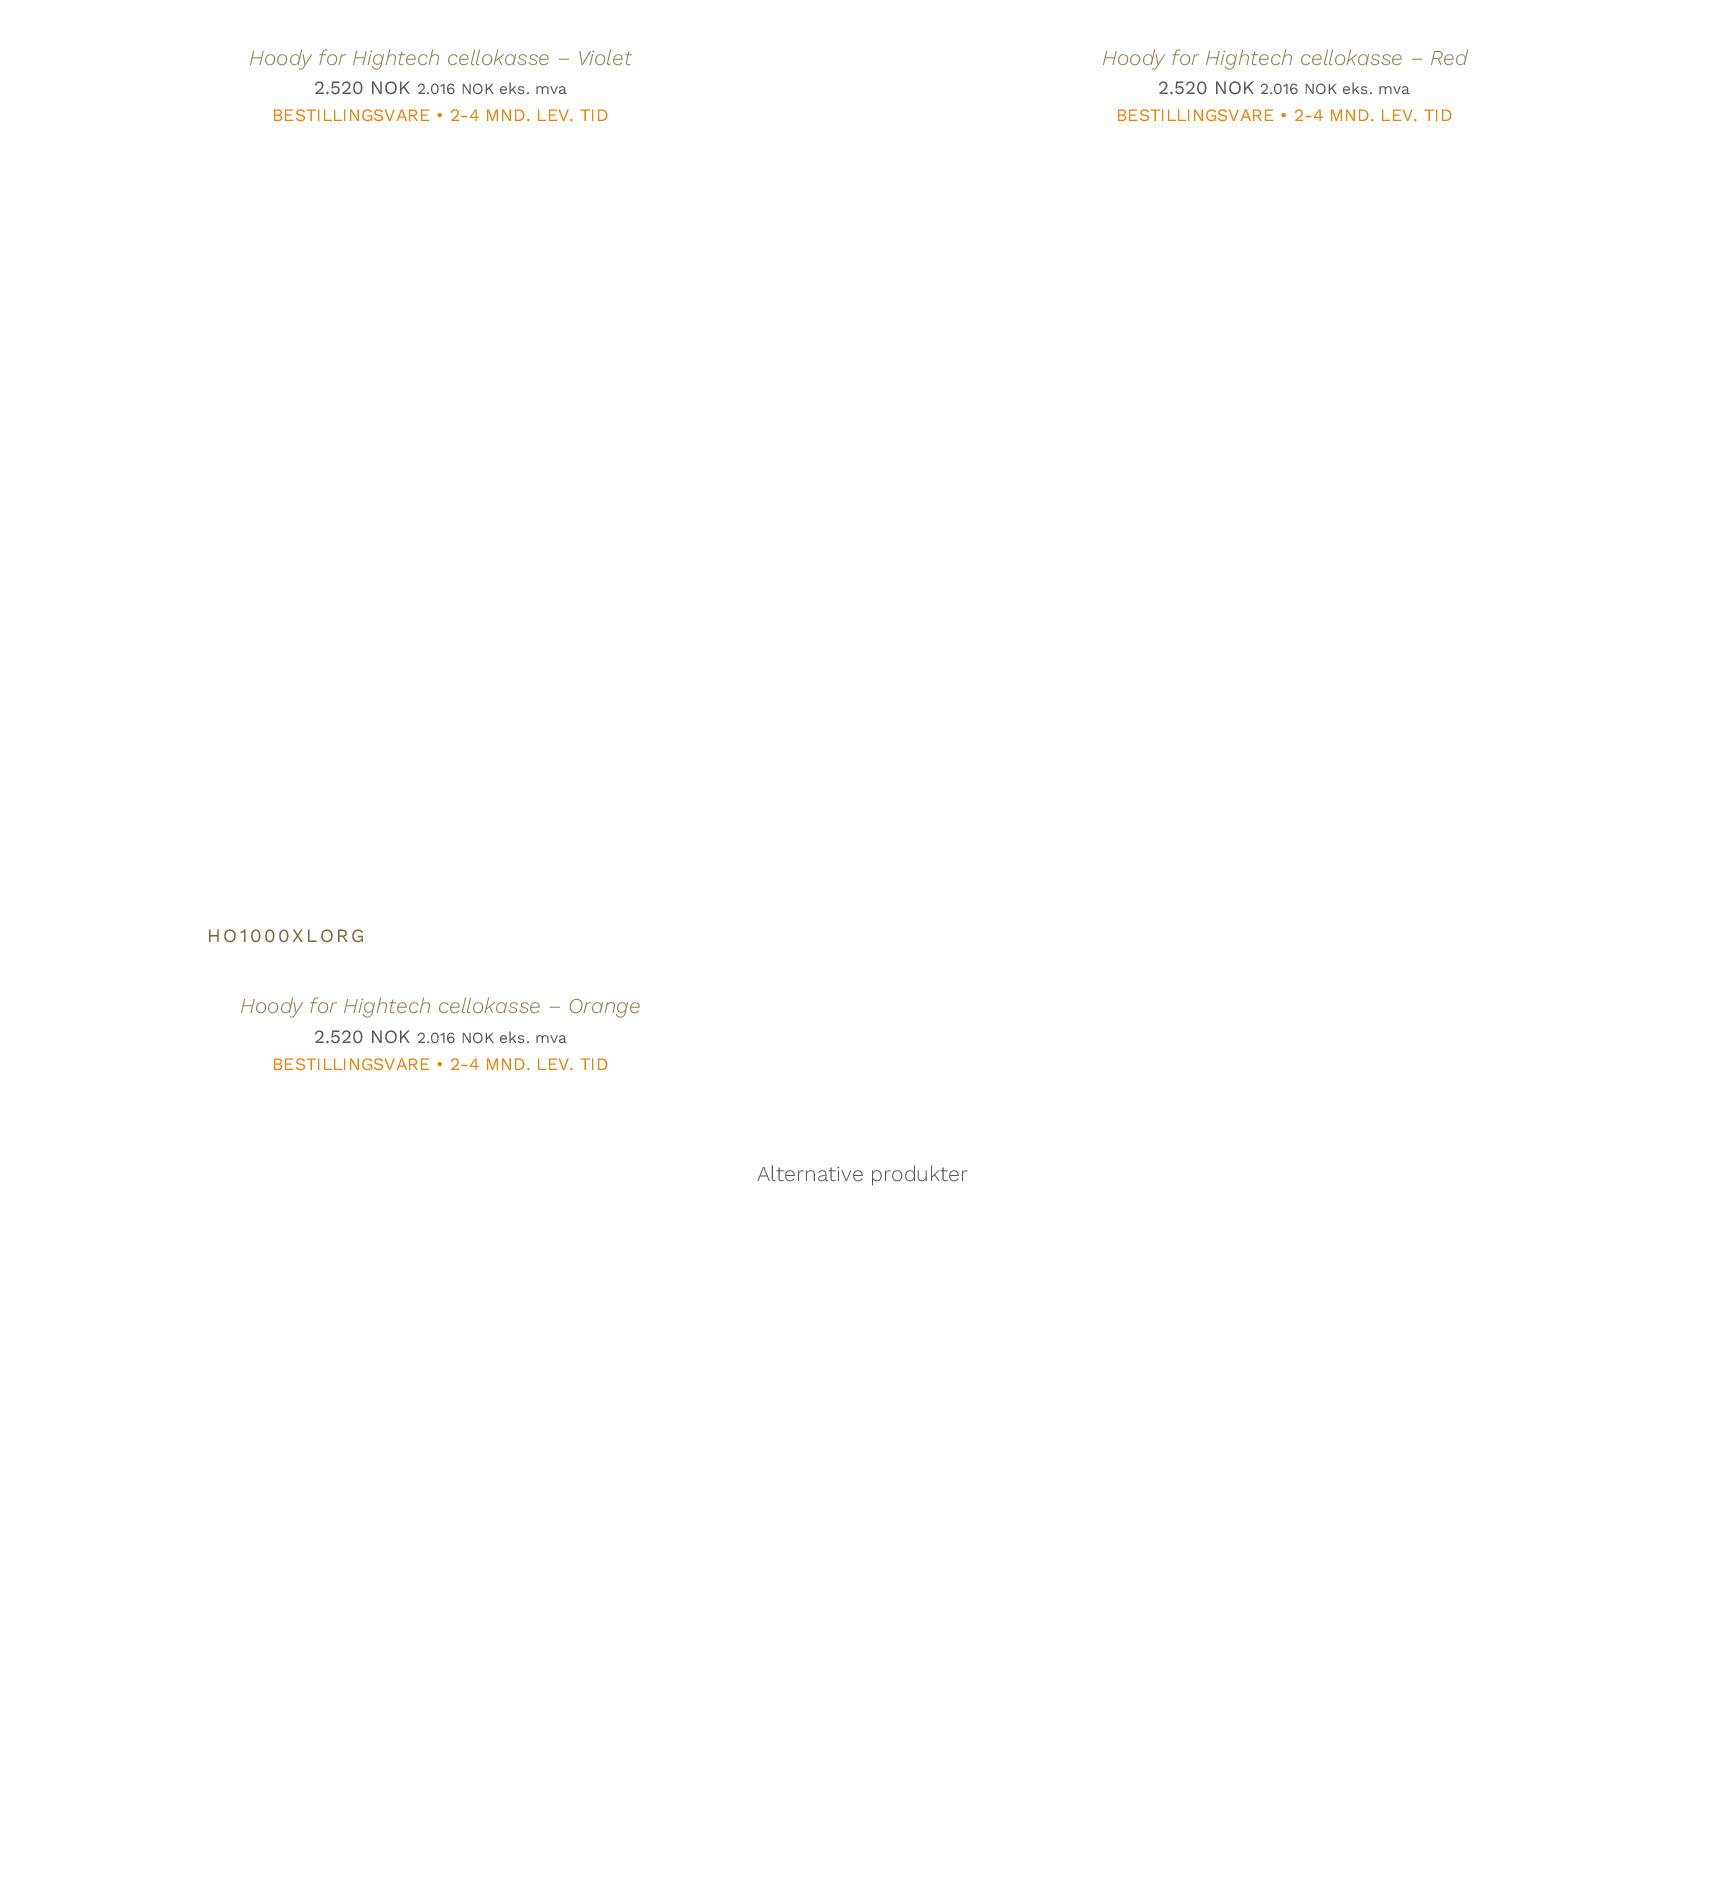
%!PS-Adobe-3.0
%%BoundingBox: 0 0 1725 1902
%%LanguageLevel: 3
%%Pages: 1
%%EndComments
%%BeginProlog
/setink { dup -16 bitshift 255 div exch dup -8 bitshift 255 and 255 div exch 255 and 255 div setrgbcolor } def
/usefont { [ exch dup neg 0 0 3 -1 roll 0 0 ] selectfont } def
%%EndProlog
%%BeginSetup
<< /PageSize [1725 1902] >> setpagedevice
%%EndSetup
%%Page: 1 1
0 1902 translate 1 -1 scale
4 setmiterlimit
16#FFFFFF setink
0 0 1725 1902 rectfill
/WorkSans-LightItalic 21.25 usefont
16#8E7854 setink
249 65 moveto (Hoody for Hightech cellokasse – Violet) show
/WorkSans-Regular 18.75 usefont
16#565654 setink
314 94 moveto (2.520 NOK) show
/WorkSans-Regular 15.6 usefont
417 94 moveto (2.016 NOK eks. mva) show
/WorkSans-Regular 17.5 usefont
16#EE7F01 setink
272 121 moveto (BESTILLINGSVARE • 2-4 MND. LEV. TID) show
/WorkSans-LightItalic 21.25 usefont
16#8E7854 setink
1102 65 moveto (Hoody for Hightech cellokasse – Red) show
/WorkSans-Regular 18.75 usefont
16#565654 setink
1158 94 moveto (2.520 NOK) show
/WorkSans-Regular 15.6 usefont
1260 94 moveto (2.016 NOK eks. mva) show
/WorkSans-Regular 17.5 usefont
16#EE7F01 setink
1116 121 moveto (BESTILLINGSVARE • 2-4 MND. LEV. TID) show
/WorkSans-Regular 18.75 usefont
16#7B6543 setink
207 942 moveto 2.5 0 (HO1000XLORG) ashow
/WorkSans-LightItalic 21.25 usefont
16#8E7854 setink
240 1013 moveto (Hoody for Hightech cellokasse – Orange) show
/WorkSans-Regular 18.75 usefont
16#565654 setink
314 1043 moveto (2.520 NOK) show
/WorkSans-Regular 15.6 usefont
417 1043 moveto (2.016 NOK eks. mva) show
/WorkSans-Regular 17.5 usefont
16#EE7F01 setink
272 1070 moveto (BESTILLINGSVARE • 2-4 MND. LEV. TID) show
/WorkSans-Light 21.25 usefont
16#565654 setink
757 1181 moveto (Alternative produkter) show
showpage
%%EOF
